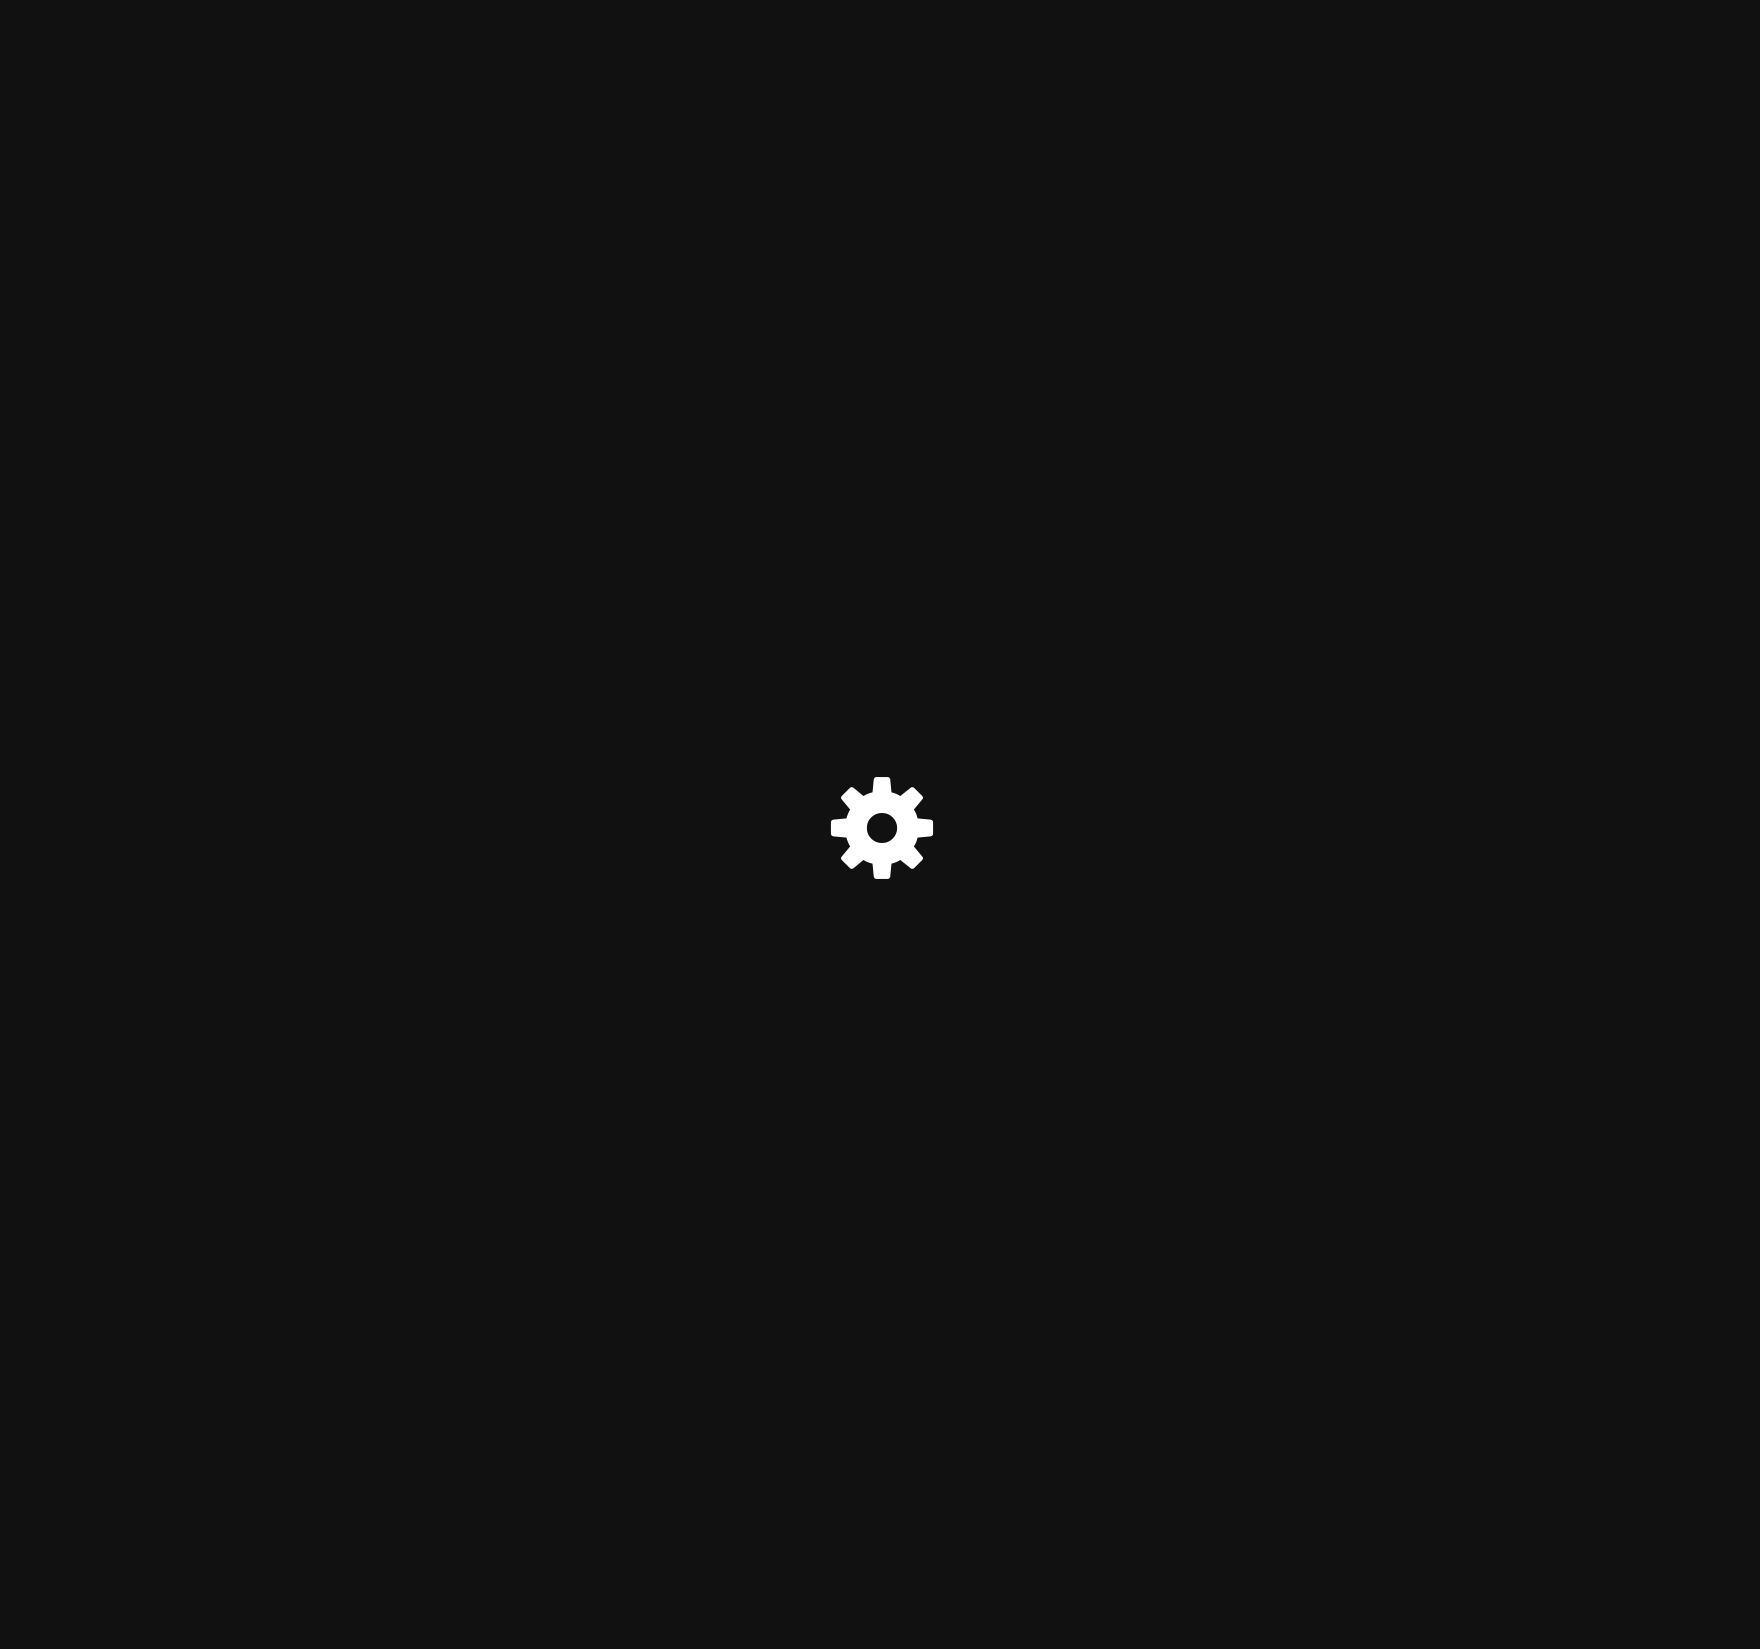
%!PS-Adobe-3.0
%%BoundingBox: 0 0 1760 1649
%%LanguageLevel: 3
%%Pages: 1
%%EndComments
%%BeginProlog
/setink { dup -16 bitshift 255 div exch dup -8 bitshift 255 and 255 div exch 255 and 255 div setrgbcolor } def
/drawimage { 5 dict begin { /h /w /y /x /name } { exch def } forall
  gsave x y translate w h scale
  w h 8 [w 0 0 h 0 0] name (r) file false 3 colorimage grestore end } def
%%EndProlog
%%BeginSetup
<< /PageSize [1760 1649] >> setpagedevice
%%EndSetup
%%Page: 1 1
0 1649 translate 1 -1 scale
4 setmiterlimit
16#111111 setink
0 0 1760 1649 rectfill
(img1.raw) 830 777 104 102 drawimage
showpage
%%EOF
